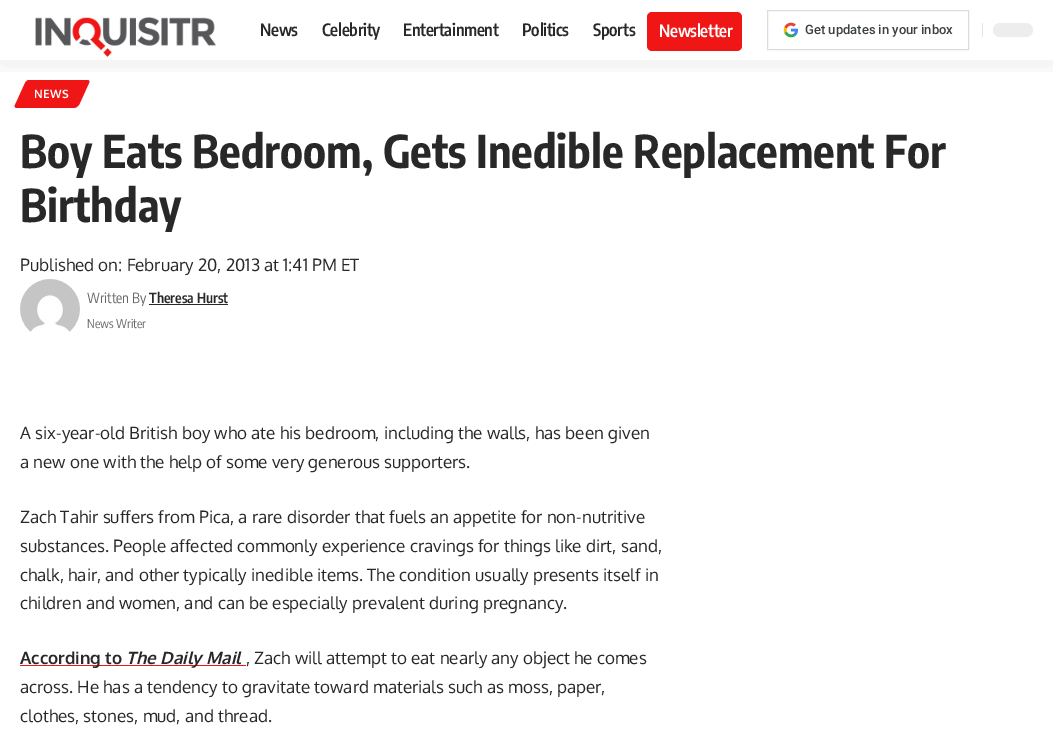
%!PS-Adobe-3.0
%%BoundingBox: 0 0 1053 752
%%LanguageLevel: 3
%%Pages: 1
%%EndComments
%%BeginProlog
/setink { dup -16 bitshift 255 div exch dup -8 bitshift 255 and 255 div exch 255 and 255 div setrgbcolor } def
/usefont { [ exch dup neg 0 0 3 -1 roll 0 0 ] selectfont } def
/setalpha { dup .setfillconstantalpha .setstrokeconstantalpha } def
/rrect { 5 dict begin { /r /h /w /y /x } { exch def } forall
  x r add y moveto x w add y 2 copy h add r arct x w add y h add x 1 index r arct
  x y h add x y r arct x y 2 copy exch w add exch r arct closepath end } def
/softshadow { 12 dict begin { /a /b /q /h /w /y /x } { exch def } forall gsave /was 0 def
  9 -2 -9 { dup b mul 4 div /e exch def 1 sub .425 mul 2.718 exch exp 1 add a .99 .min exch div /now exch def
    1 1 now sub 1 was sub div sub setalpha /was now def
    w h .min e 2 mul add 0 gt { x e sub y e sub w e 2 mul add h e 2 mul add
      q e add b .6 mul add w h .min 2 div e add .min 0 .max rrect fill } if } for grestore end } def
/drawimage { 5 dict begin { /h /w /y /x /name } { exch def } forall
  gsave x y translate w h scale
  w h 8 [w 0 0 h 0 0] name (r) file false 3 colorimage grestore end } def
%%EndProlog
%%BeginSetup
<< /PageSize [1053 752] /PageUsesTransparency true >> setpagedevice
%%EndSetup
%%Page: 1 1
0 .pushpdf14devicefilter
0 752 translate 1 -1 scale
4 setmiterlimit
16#FFFFFF setink
0 0 1053 752 rectfill
16#EF1615 setink
29 80 moveto 87 80 lineto 89 80 90 81 89 83 curveto 79 105 lineto 78 106 76 108 74 108 curveto 17 108 lineto 15 108 14 106 15 105 curveto 25 83 lineto 26 81 28 80 29 80 curveto closepath fill
gsave
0 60 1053 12 rectclip
16#000000 setink
0 4 1053 60 0 15 0.07 softshadow
grestore
(img1.raw) 35 17 181 40 drawimage
/EncodeSansCondensed-SemiBold 17 usefont
16#282828 setink
260 36 moveto -0.3 0 (News) ashow
322 36 moveto -0.3 0 (Celebrity) ashow
403 36 moveto -0.3 0 (Entertainment) ashow
522 36 moveto -0.3 0 (Politics) ashow
593 36 moveto -0.3 0 (Sports) ashow
16#EF1615 setink
647 12 95 39 5 rrect fill
16#FFFFFF setink
659 37 moveto -0.3 0 (Newsletter) ashow
16#DADCE0 setink
767.5 10.5 201 39 rectstroke
(img2.raw) 783 22 15 16 drawimage
/Roboto-Medium 13 usefont
16#3C4043 setink
805 34 moveto (Get updates in your inbox) show
16#E4E4E4 setink
982 23 1 14 rectfill
16#EDEDED setink
993 23 40 14 7 rrect fill
/Oxygen-Bold 11.5 usefont
16#FFFFFF setink
34 98 moveto 0.5 0 (NEWS) ashow
/EncodeSansCondensed-Bold 45 usefont
16#282828 setink
20 168 moveto (Boy Eats Bedroom, Gets Inedible Replacement For) show
20 222 moveto (Birthday) show
/Oxygen-Regular 17 usefont
20 271 moveto (Published on: February 20, 2013 at 1:41 PM ET) show
(img3.raw) 20 279 60 53 drawimage
/EncodeSansCondensed-Regular 14 usefont
16#666666 setink
87 303 moveto (Written By) show
/EncodeSansCondensed-SemiBold 14 usefont
16#282828 setink
149 303 moveto (Theresa Hurst) show
149 304 79 1 rectfill
/EncodeSansCondensed-Regular 12 usefont
16#666666 setink
87 328 moveto (News Writer) show
/Oxygen-Regular 17 usefont
16#282828 setink
[
    [(A six-year-old British boy who ate his bedroom, including the walls, has been given) 20 439]
    [(a new one with the help of some very generous supporters.) 20 468]
    [(Zach Tahir suffers from Pica, a rare disorder that fuels an appetite for non-nutritive) 20 523]
    [(substances. People affected commonly experience cravings for things like dirt, sand,) 20 552]
    [(chalk, hair, and other typically inedible items. The condition usually presents itself in) 20 581]
    [(children and women, and can be especially prevalent during pregnancy.) 20 609]
] { aload pop moveto show } forall
16#EF1615 setink
20 665 226 1 rectfill
/Oxygen-Bold 17 usefont
16#282828 setink
20 664 moveto (According to) show
/Oxygen-BoldItalic 17 usefont
126 664 moveto (The Daily Mail) show
/Oxygen-Regular 17 usefont
[
    [(, Zach will attempt to eat nearly any object he comes) 246 664]
    [(across. He has a tendency to gravitate toward materials such as moss, paper,) 20 693]
    [(clothes, stones, mud, and thread.) 20 722]
] { aload pop moveto show } forall
.poppdf14devicefilter showpage
%%EOF
